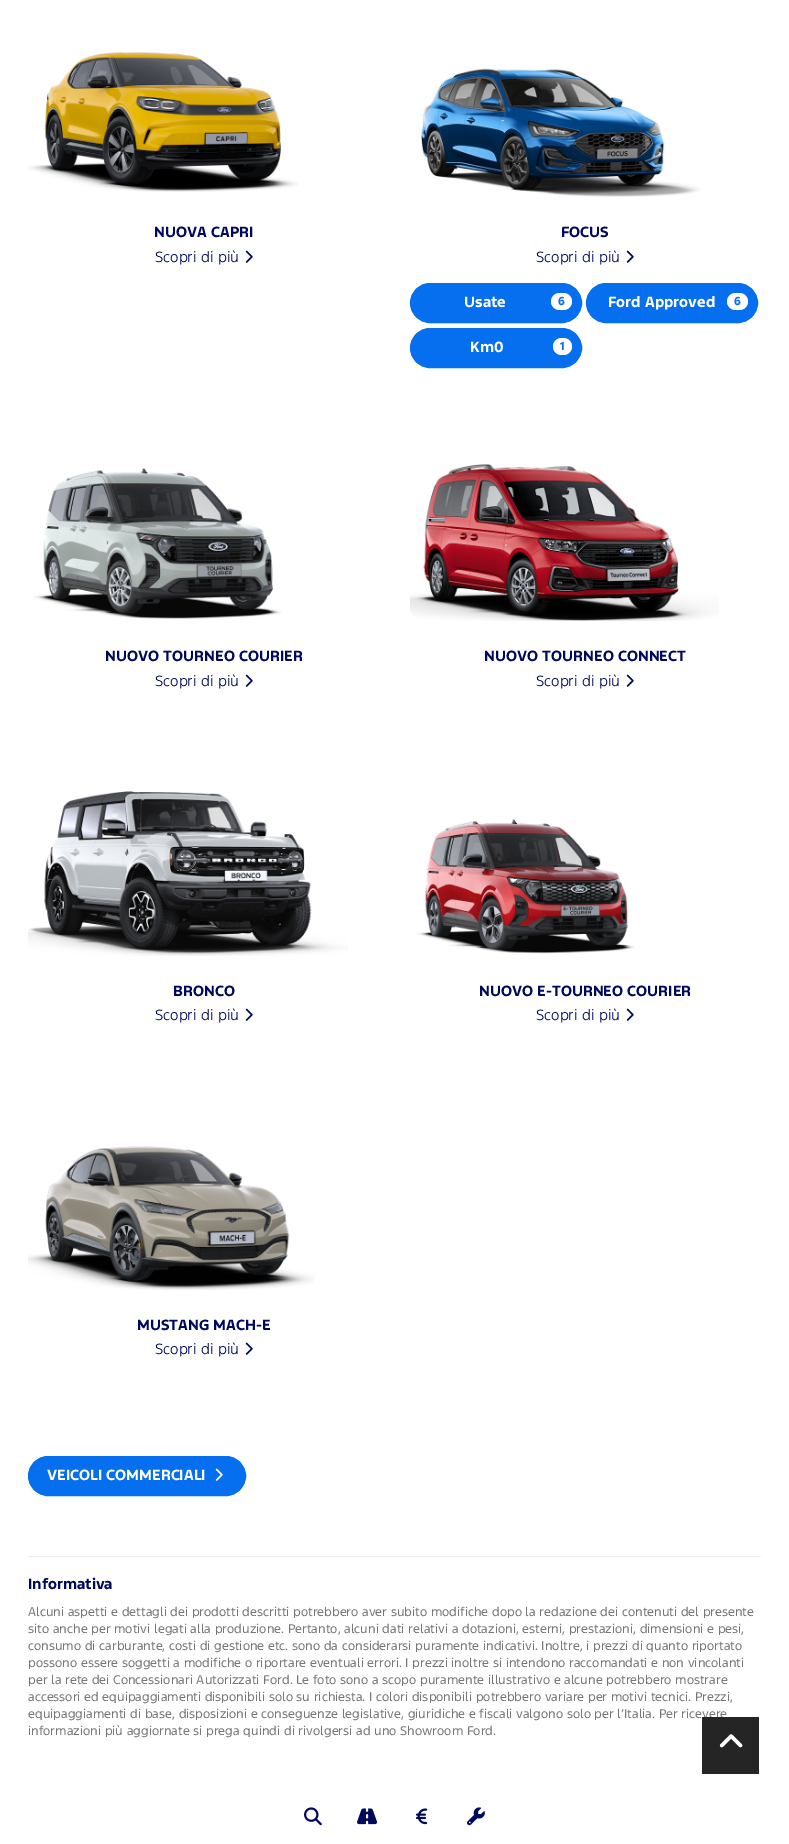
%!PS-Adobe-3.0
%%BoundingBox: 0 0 789 1844
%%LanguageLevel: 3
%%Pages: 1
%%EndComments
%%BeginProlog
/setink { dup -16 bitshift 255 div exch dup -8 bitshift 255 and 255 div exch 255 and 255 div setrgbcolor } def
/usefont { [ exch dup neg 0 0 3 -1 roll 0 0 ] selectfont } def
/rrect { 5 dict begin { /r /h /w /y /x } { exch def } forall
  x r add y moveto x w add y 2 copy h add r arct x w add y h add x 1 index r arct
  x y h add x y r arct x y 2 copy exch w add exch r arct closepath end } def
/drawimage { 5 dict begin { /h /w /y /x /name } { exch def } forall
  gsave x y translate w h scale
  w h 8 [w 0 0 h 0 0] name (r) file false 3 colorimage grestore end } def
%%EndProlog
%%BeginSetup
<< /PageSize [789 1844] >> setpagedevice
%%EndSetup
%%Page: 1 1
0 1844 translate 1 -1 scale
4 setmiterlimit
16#FFFFFF setink
0 0 789 1844 rectfill
(img1.raw) 28 52 271 140 drawimage
/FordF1-Bold 14 usefont
16#00095B setink
154 237 moveto (NUOVA CAPRI) show
/FordF1-Light 14 usefont
155 262 moveto (Scopri di più) show
(img2.raw) 245 250 8 13 drawimage
(img3.raw) 418 65 282 132 drawimage
/FordF1-Bold 14 usefont
561 237 moveto (FOCUS) show
/FordF1-Light 14 usefont
536 262 moveto (Scopri di più) show
(img2.raw) 626 250 8 13 drawimage
16#066FEF setink
410.5 283.5 171 39 19.5 rrect gsave fill grestore
stroke
/FordF1-Bold 14 usefont
16#FFFFFF setink
464 307 moveto (Usate) show
551 293 21 17 8.5 rrect fill
/FordF1-Bold 11 usefont
16#066FEF setink
558 305 moveto (6) show
586.5 283.5 171 39 19.5 rrect gsave fill grestore
stroke
/FordF1-Bold 14 usefont
16#FFFFFF setink
608 307 moveto (Ford Approved) show
727 293 21 17 8.5 rrect fill
/FordF1-Bold 11 usefont
16#066FEF setink
734 305 moveto (6) show
410.5 328.5 171 39 19.5 rrect gsave fill grestore
stroke
/FordF1-Bold 14 usefont
16#FFFFFF setink
470 352 moveto (Km0) show
553 338 19 17 8.5 rrect fill
/FordF1-Bold 11 usefont
16#066FEF setink
560 350 moveto (1) show
(img4.raw) 33 468 249 151 drawimage
/FordF1-Bold 14 usefont
16#00095B setink
105 661 moveto (NUOVO TOURNEO COURIER) show
/FordF1-Light 14 usefont
155 686 moveto (Scopri di più) show
(img2.raw) 245 674 8 13 drawimage
(img5.raw) 410 464 309 157 drawimage
/FordF1-Bold 14 usefont
484 661 moveto (NUOVO TOURNEO CONNECT) show
/FordF1-Light 14 usefont
536 686 moveto (Scopri di più) show
(img2.raw) 626 674 8 13 drawimage
(img6.raw) 28 791 320 165 drawimage
/FordF1-Bold 14 usefont
173 996 moveto (BRONCO) show
/FordF1-Light 14 usefont
155 1020 moveto (Scopri di più) show
(img2.raw) 245 1008 8 13 drawimage
(img7.raw) 417 819 218 135 drawimage
/FordF1-Bold 14 usefont
479 996 moveto (NUOVO E-TOURNEO COURIER) show
/FordF1-Light 14 usefont
536 1020 moveto (Scopri di più) show
(img2.raw) 626 1008 8 13 drawimage
(img8.raw) 28 1146 287 144 drawimage
/FordF1-Bold 14 usefont
137 1330 moveto (MUSTANG MACH-E) show
/FordF1-Light 14 usefont
155 1354 moveto (Scopri di più) show
(img2.raw) 245 1342 8 13 drawimage
16#066FEF setink
28.5 1456.5 217 39 19.5 rrect gsave fill grestore
stroke
/FordF1-Bold 14 usefont
16#FFFFFF setink
47 1480 moveto (VEICOLI COMMERCIALI) show
(img9.raw) 215 1468 8 13 drawimage
16#EEEEEE setink
28 1556 733 1 rectfill
16#00095B setink
28 1589 moveto (Informativa) show
/FordF1-Regular 11.9 usefont
16#777777 setink
[
    [(Alcuni aspetti e dettagli dei prodotti descritti potrebbero aver subito modifiche dopo la redazione dei contenuti del presente) 28 1616]
    [(sito anche per motivi legati alla produzione. Pertanto, alcuni dati relativi a dotazioni, esterni, prestazioni, dimensioni e pesi,) 28 1633]
    [(consumo di carburante, costi di gestione etc. sono da considerarsi puramente indicativi. Inoltre, i prezzi di quanto riportato) 28 1650]
    [(possono essere soggetti a modifiche o riportare eventuali errori. I prezzi inoltre si intendono raccomandati e non vincolanti) 28 1667]
    [(per la rete dei Concessionari Autorizzati Ford. Le foto sono a scopo puramente illustrativo e alcune potrebbero mostrare) 28 1684]
    [(accessori ed equipaggiamenti disponibili solo su richiesta. I colori disponibili potrebbero variare per motivi tecnici. Prezzi,) 28 1701]
    [(equipaggiamenti di base, disposizioni e conseguenze legislative, giuridiche e fiscali valgono solo per l’Italia. Per ricevere) 28 1718]
    [(informazioni più aggiornate si prega quindi di rivolgersi ad uno Showroom Ford.) 28 1735]
] { aload pop moveto show } forall
16#252525 setink
702 1717 57 57 rectfill
(img10.raw) 719 1734 24 14 drawimage
(img11.raw) 304 1807 18 19 drawimage
(img12.raw) 357 1808 21 17 drawimage
(img13.raw) 416 1808 12 17 drawimage
(img14.raw) 467 1807 18 19 drawimage
showpage
%%EOF
